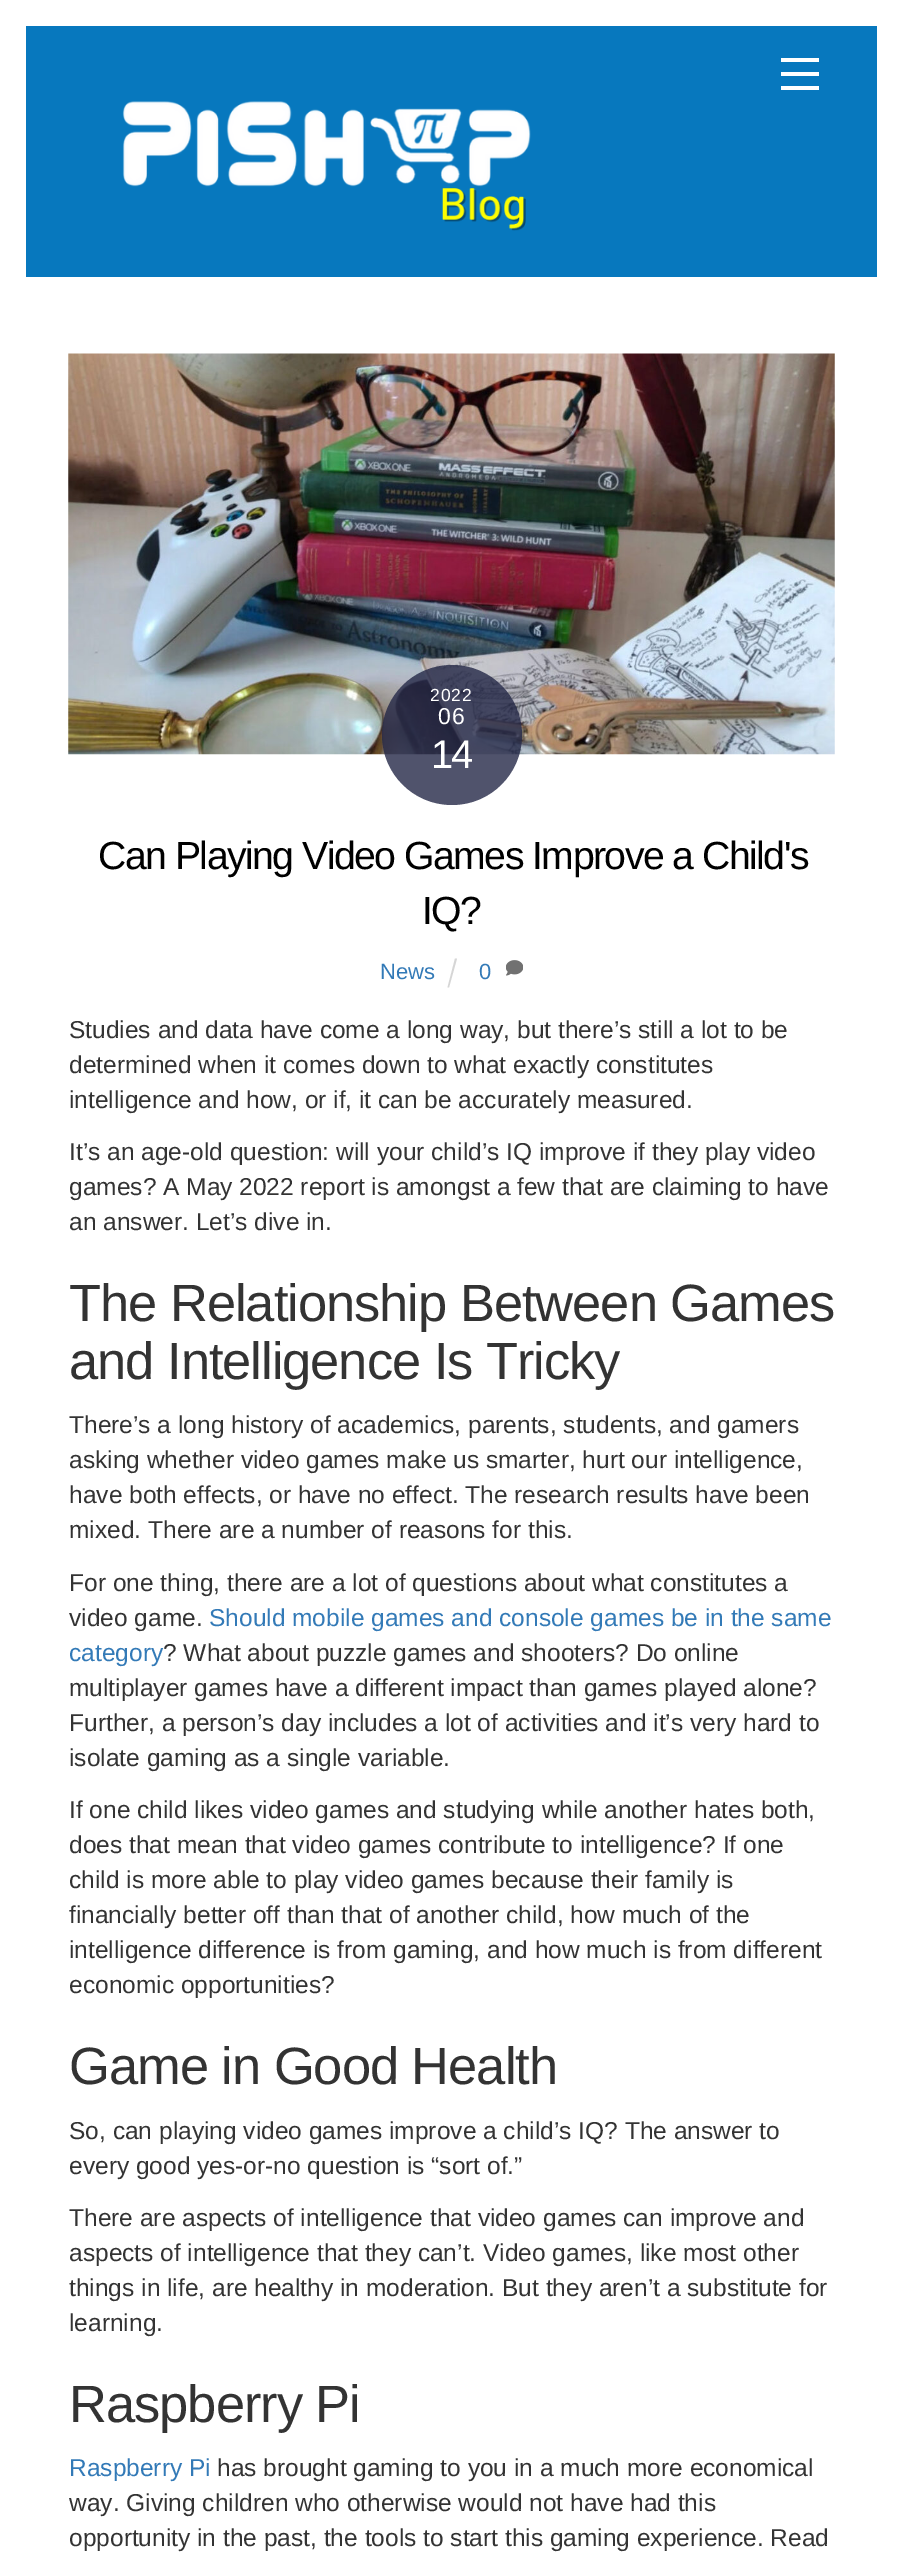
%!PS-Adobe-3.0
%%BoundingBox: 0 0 903 2552
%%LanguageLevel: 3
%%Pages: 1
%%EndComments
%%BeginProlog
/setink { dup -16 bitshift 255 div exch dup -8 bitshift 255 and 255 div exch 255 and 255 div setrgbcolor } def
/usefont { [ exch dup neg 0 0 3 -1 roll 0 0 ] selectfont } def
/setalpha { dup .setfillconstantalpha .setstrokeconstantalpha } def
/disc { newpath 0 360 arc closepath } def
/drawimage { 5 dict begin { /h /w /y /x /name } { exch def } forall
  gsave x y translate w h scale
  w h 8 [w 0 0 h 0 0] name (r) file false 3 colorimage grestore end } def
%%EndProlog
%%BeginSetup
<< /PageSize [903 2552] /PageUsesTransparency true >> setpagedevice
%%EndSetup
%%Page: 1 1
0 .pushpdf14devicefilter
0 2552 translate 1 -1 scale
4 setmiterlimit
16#FFFFFF setink
0 0 903 2552 rectfill
[
    [26 26 851 251 16#0778BE]
    [781 86 38 4 16#FFFFFF]
    [781 58 38 4 16#FFFFFF]
    [781 72 38 4 16#FFFFFF]
] { aload pop setink rectfill } forall
(img1.raw) 122 101 409 130 drawimage
(img2.raw) 68 353 767 402 drawimage
0.8 setalpha
16#242847 setink
452 735 70 disc fill
/LiberationSans-Regular 17.5 usefont
1 setalpha
16#FFFFFF setink
430 701 moveto 1 0 (2022) ashow
/LiberationSans-Regular 23 usefont
438 724 moveto 1 0 (06) ashow
/LiberationSans-Regular 40 usefont
431 768 moveto -2 0 (14) ashow
/LiberationSans-Regular 39.25 usefont
16#000000 setink
98 869 moveto -1.55 0 (Can Playing Video Games Improve a Child's) ashow
422 924 moveto -1.55 0 (IQ?) ashow
/LiberationSans-Regular 22 usefont
16#337AB7 setink
380 979 moveto (News) show
16#D6D6D6 setink
455 958.5 moveto 457 958.5 lineto 449 987.5 lineto 447.5 987.5 lineto closepath fill
16#337AB7 setink
479 979 moveto (0) show
(img3.raw) 506 960 17 16 drawimage
/LiberationSans-Regular 24.5 usefont
16#333333 setink
[
    [(Studies and data have come a long way, but there’s still a lot to be) 69 1038]
    [(determined when it comes down to what exactly constitutes) 69 1073]
    [(intelligence and how, or if, it can be accurately measured.) 69 1108]
    [(It’s an age-old question: will your child’s IQ improve if they play video) 69 1160]
    [(games? A May 2022 report is amongst a few that are claiming to have) 69 1195]
    [(an answer. Let’s dive in.) 69 1230]
] { aload pop moveto show } forall
/LiberationSans-Regular 52.5 usefont
69 1321 moveto -1.05 0 (The Relationship Between Games) ashow
69 1379 moveto -1.05 0 (and Intelligence Is Tricky) ashow
/LiberationSans-Regular 24.5 usefont
[
    [(There’s a long history of academics, parents, students, and gamers) 69 1433]
    [(asking whether video games make us smarter, hurt our intelligence,) 69 1468]
    [(have both effects, or have no effect. The research results have been) 69 1503]
    [(mixed. There are a number of reasons for this.) 69 1538]
    [(For one thing, there are a lot of questions about what constitutes a) 69 1591]
    [(video game.) 69 1626]
] { aload pop moveto show } forall
16#337AB7 setink
209 1626 moveto (Should mobile games and console games be in the same) show
69 1661 moveto (category) show
16#333333 setink
[
    [(? What about puzzle games and shooters? Do online) 163 1661]
    [(multiplayer games have a different impact than games played alone?) 69 1696]
    [(Further, a person’s day includes a lot of activities and it’s very hard to) 69 1731]
    [(isolate gaming as a single variable.) 69 1766]
    [(If one child likes video games and studying while another hates both,) 69 1818]
    [(does that mean that video games contribute to intelligence? If one) 69 1853]
    [(child is more able to play video games because their family is) 69 1888]
    [(financially better off than that of another child, how much of the) 69 1923]
    [(intelligence difference is from gaming, and how much is from different) 69 1958]
    [(economic opportunities?) 69 1993]
] { aload pop moveto show } forall
/LiberationSans-Regular 52.5 usefont
69 2084 moveto -1.05 0 (Game in Good Health) ashow
/LiberationSans-Regular 24.5 usefont
[
    [(So, can playing video games improve a child’s IQ? The answer to) 69 2139]
    [(every good yes-or-no question is “sort of.”) 69 2174]
    [(There are aspects of intelligence that video games can improve and) 69 2226]
    [(aspects of intelligence that they can’t. Video games, like most other) 69 2261]
    [(things in life, are healthy in moderation. But they aren’t a substitute for) 69 2296]
    [(learning.) 69 2331]
] { aload pop moveto show } forall
/LiberationSans-Regular 52.5 usefont
69 2422 moveto -1.05 0 (Raspberry Pi) ashow
/LiberationSans-Regular 24.5 usefont
16#337AB7 setink
69 2476 moveto (Raspberry Pi) show
16#333333 setink
[
    [(has brought gaming to you in a much more economical) 217 2476]
    [(way. Giving children who otherwise would not have had this) 69 2511]
    [(opportunity in the past, the tools to start this gaming experience. Read) 69 2546]
] { aload pop moveto show } forall
.poppdf14devicefilter showpage
%%EOF
